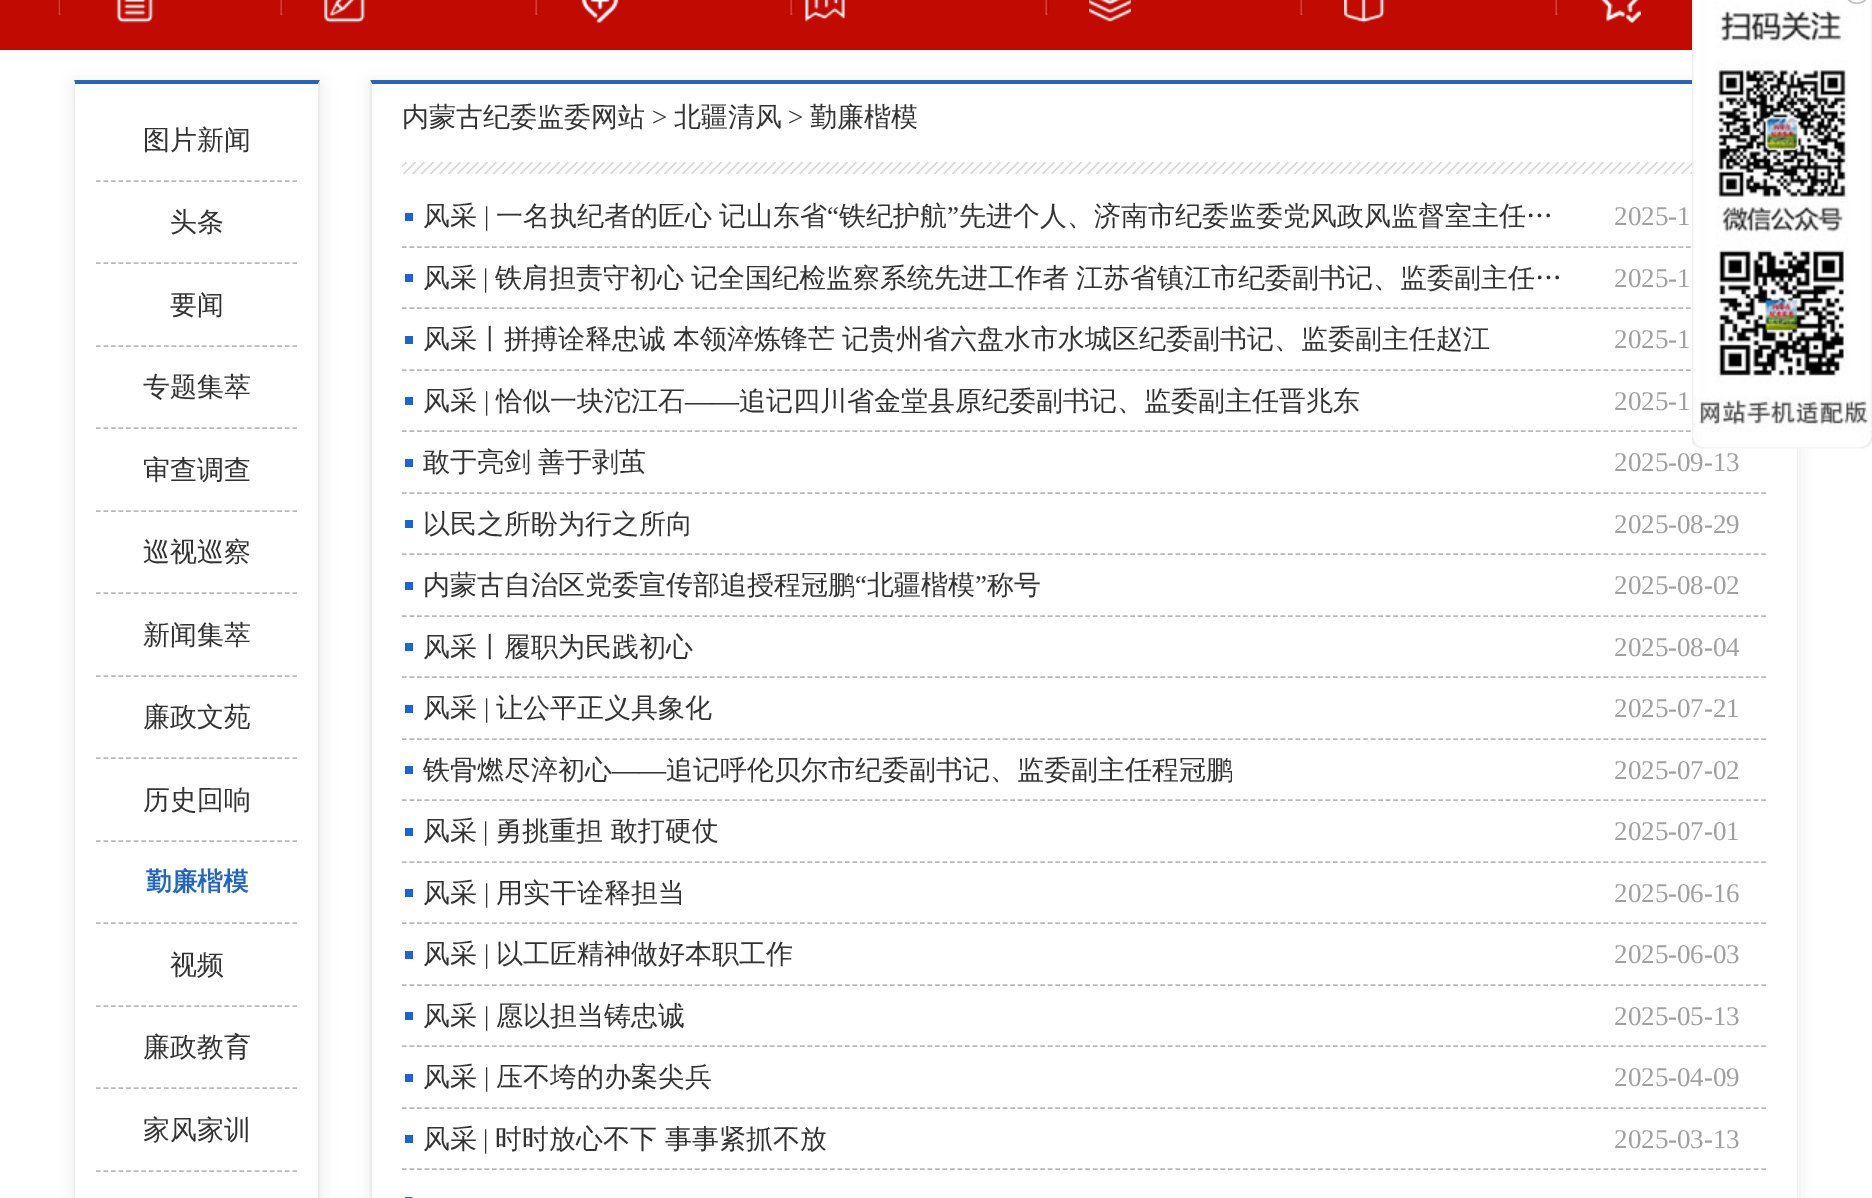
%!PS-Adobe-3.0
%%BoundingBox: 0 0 1872 1198
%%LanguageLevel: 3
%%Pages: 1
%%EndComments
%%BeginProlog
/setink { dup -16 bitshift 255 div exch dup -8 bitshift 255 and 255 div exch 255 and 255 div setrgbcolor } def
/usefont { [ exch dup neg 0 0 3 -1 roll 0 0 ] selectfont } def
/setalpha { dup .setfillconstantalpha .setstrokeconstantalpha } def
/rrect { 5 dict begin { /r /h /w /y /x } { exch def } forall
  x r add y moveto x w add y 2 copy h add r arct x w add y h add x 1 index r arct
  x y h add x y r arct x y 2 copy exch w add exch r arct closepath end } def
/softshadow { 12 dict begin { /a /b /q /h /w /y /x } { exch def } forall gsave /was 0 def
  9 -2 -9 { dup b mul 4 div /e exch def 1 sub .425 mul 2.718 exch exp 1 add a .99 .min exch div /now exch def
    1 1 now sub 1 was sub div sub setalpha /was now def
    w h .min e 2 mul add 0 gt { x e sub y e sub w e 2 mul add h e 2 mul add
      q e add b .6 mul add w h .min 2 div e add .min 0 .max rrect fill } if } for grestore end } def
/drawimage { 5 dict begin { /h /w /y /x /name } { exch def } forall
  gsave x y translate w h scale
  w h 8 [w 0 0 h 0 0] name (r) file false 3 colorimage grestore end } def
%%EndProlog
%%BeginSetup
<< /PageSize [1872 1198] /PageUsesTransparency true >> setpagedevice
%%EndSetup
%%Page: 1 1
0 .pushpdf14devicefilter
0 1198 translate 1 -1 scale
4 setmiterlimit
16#FFFFFF setink
0 0 1872 1198 rectfill
16#C10A02 setink
0 0 1692 50 rectfill
(img1.raw) 280 0 4 15 drawimage
(img2.raw) 58 0 4 15 drawimage
(img3.raw) 116 0 38 23 drawimage
(img1.raw) 535 0 4 15 drawimage
(img4.raw) 324 0 41 23 drawimage
(img1.raw) 790 0 4 15 drawimage
(img5.raw) 581 0 38 23 drawimage
(img1.raw) 1045 0 4 15 drawimage
(img6.raw) 805 0 40 22 drawimage
(img1.raw) 1300 0 4 15 drawimage
(img7.raw) 1089 0 42 22 drawimage
(img1.raw) 1555 0 4 15 drawimage
(img8.raw) 1344 0 41 23 drawimage
(img9.raw) 1600 0 41 23 drawimage
gsave
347 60 moveto 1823 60 lineto 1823 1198 lineto 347 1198 lineto closepath 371 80 moveto 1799 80 lineto 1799 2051 lineto 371 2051 lineto closepath eoclip newpath
16#959595 setink
371 84 1428 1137 0 7.5 0.2 softshadow
grestore
16#2266C0 setink
370 80 moveto 1798 80 lineto 1797 84 lineto 372 84 lineto closepath fill
16#ECECEC setink
1798 80 moveto 1798 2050 lineto 1797 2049 lineto 1797 84 lineto closepath fill
16#B8B8B8 setink
1.5 setlinewidth
[4.5 3.01] 0 setdash
402 247 moveto 1767 247 lineto stroke
402 308 moveto 1767 308 lineto stroke
402 370 moveto 1767 370 lineto stroke
402 431 moveto 1767 431 lineto stroke
(img10.raw) 1692 0 180 449 drawimage
(img11.raw) 1847 0 20 4 drawimage
gsave
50 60 moveto 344 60 lineto 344 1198 lineto 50 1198 lineto closepath 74 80 moveto 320 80 lineto 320 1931 lineto 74 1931 lineto closepath eoclip newpath
16#959595 setink
74 84 246 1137 0 7.5 0.2 softshadow
grestore
16#2266C0 setink
74 80 moveto 320 80 lineto 318 84 lineto 75 84 lineto closepath fill
16#ECECEC setink
320 80 moveto 320 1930 lineto 318 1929 lineto 318 84 lineto closepath fill
74 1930 moveto 74 80 lineto 75 84 lineto 75 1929 lineto closepath fill
16#B9B9B9 setink
[4.5 3.06] 0 setdash
96 181 moveto 297 181 lineto stroke
/WenQuanYiZenHei-Medium 27 usefont
16#333333 setink
143 149 moveto (图片新闻) show
16#B9B9B9 setink
96 263 moveto 297 263 lineto stroke
16#333333 setink
170 231 moveto (头条) show
16#B9B9B9 setink
96 346 moveto 297 346 lineto stroke
16#333333 setink
170 314 moveto (要闻) show
16#B9B9B9 setink
96 428 moveto 297 428 lineto stroke
16#333333 setink
143 396 moveto (专题集萃) show
16#B9B9B9 setink
96 511 moveto 297 511 lineto stroke
16#333333 setink
143 479 moveto (审查调查) show
16#B9B9B9 setink
96 593 moveto 297 593 lineto stroke
16#333333 setink
143 561 moveto (巡视巡察) show
16#B9B9B9 setink
96 676 moveto 297 676 lineto stroke
16#333333 setink
143 644 moveto (新闻集萃) show
16#B9B9B9 setink
96 758 moveto 297 758 lineto stroke
16#333333 setink
143 726 moveto (廉政文苑) show
16#B9B9B9 setink
96 841 moveto 297 841 lineto stroke
16#333333 setink
143 809 moveto (历史回响) show
16#B9B9B9 setink
96 923 moveto 297 923 lineto stroke
/WenQuanYiZenHei-Bold 25.5 usefont
16#2266C0 setink
146 890 moveto (勤廉楷模) show
16#B9B9B9 setink
96 1006 moveto 297 1006 lineto stroke
/WenQuanYiZenHei-Medium 27 usefont
16#333333 setink
170 974 moveto (视频) show
16#B9B9B9 setink
96 1088 moveto 297 1088 lineto stroke
16#333333 setink
143 1056 moveto (廉政教育) show
16#B9B9B9 setink
96 1171 moveto 297 1171 lineto stroke
16#333333 setink
143 1139 moveto (家风家训) show
16#ECECEC setink
370 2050 moveto 370 80 lineto 372 84 lineto 372 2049 lineto closepath fill
(img12.raw) 402 162 1290 12 drawimage
16#333333 setink
402 126 moveto (内蒙古纪委监委网站) show
/LiberationSerif-Regular 27 usefont
652 126 moveto (>) show
/WenQuanYiZenHei-Medium 27 usefont
674 126 moveto (北疆清风) show
/LiberationSerif-Regular 27 usefont
788 126 moveto (>) show
/WenQuanYiZenHei-Medium 27 usefont
810 126 moveto (勤廉楷模) show
16#1B64D7 setink
405 213 8 8 rectfill
16#333333 setink
423 225 moveto (风采) show
/LiberationSerif-Regular 27 usefont
484 225 moveto (|) show
/WenQuanYiZenHei-Medium 27 usefont
496 225 moveto (一名执纪者的匠心) show
719 225 moveto (记山东省) show
/LiberationSerif-Regular 27 usefont
827 225 moveto (“) show
/WenQuanYiZenHei-Medium 27 usefont
839 225 moveto (铁纪护航) show
/LiberationSerif-Regular 27 usefont
947 225 moveto (”) show
/WenQuanYiZenHei-Medium 27 usefont
959 225 moveto (先进个人、济南市纪委监委党风政风监督室主任…) show
/LiberationSerif-Regular 27 usefont
16#A0A0A0 setink
1614 225 moveto (2025-1) show
16#1B64D7 setink
405 274 8 8 rectfill
/WenQuanYiZenHei-Medium 27 usefont
16#333333 setink
423 287 moveto (风采) show
/LiberationSerif-Regular 27 usefont
483 287 moveto (|) show
/WenQuanYiZenHei-Medium 27 usefont
495 287 moveto -1 0 32 (铁肩担责守初心 记全国纪检监察系统先进工作者) widthshow
1076 287 moveto (江苏省镇江市纪委副书记、监委副主任…) show
/LiberationSerif-Regular 27 usefont
16#A0A0A0 setink
1614 287 moveto (2025-1) show
16#1B64D7 setink
405 336 8 8 rectfill
/WenQuanYiZenHei-Medium 27 usefont
16#333333 setink
423 348 moveto -1 0 32 (风采丨拼搏诠释忠诚 本领淬炼锋芒) widthshow
842 348 moveto (记贵州省六盘水市水城区纪委副书记、监委副主任赵江) show
/LiberationSerif-Regular 27 usefont
16#A0A0A0 setink
1614 348 moveto (2025-1) show
16#1B64D7 setink
405 397 8 8 rectfill
/WenQuanYiZenHei-Medium 27 usefont
16#333333 setink
423 410 moveto (风采) show
/LiberationSerif-Regular 27 usefont
484 410 moveto (|) show
/WenQuanYiZenHei-Medium 27 usefont
496 410 moveto (恰似一块沱江石) show
/LiberationSerif-Regular 27 usefont
685 410 moveto (——) show
/WenQuanYiZenHei-Medium 27 usefont
739 410 moveto (追记四川省金堂县原纪委副书记、监委副主任晋兆东) show
/LiberationSerif-Regular 27 usefont
16#A0A0A0 setink
1614 410 moveto (2025-1) show
16#1B64D7 setink
405 459 8 8 rectfill
16#B8B8B8 setink
[4.5 3.01] 0 setdash
402 493 moveto 1767 493 lineto stroke
/WenQuanYiZenHei-Medium 27 usefont
16#333333 setink
423 471 moveto -1 0 32 (敢于亮剑 善于剥茧) widthshow
/LiberationSerif-Regular 27 usefont
16#A0A0A0 setink
1614 471 moveto (2025-09-13) show
16#1B64D7 setink
405 520 8 8 rectfill
16#B8B8B8 setink
402 554 moveto 1767 554 lineto stroke
/WenQuanYiZenHei-Medium 27 usefont
16#333333 setink
423 533 moveto (以民之所盼为行之所向) show
/LiberationSerif-Regular 27 usefont
16#A0A0A0 setink
1614 533 moveto (2025-08-29) show
16#1B64D7 setink
405 582 8 8 rectfill
16#B8B8B8 setink
402 616 moveto 1767 616 lineto stroke
/WenQuanYiZenHei-Medium 27 usefont
16#333333 setink
423 594 moveto (内蒙古自治区党委宣传部追授程冠鹏) show
/LiberationSerif-Regular 27 usefont
855 594 moveto (“) show
/WenQuanYiZenHei-Medium 27 usefont
867 594 moveto (北疆楷模) show
/LiberationSerif-Regular 27 usefont
975 594 moveto (”) show
/WenQuanYiZenHei-Medium 27 usefont
987 594 moveto (称号) show
/LiberationSerif-Regular 27 usefont
16#A0A0A0 setink
1614 594 moveto (2025-08-02) show
16#1B64D7 setink
405 643 8 8 rectfill
16#B8B8B8 setink
402 677 moveto 1767 677 lineto stroke
/WenQuanYiZenHei-Medium 27 usefont
16#333333 setink
423 656 moveto (风采丨履职为民践初心) show
/LiberationSerif-Regular 27 usefont
16#A0A0A0 setink
1614 656 moveto (2025-08-04) show
16#1B64D7 setink
405 705 8 8 rectfill
16#B8B8B8 setink
402 739 moveto 1767 739 lineto stroke
/WenQuanYiZenHei-Medium 27 usefont
16#333333 setink
423 717 moveto (风采) show
/LiberationSerif-Regular 27 usefont
484 717 moveto (|) show
/WenQuanYiZenHei-Medium 27 usefont
496 717 moveto (让公平正义具象化) show
/LiberationSerif-Regular 27 usefont
16#A0A0A0 setink
1614 717 moveto (2025-07-21) show
16#1B64D7 setink
405 766 8 8 rectfill
16#B8B8B8 setink
402 800 moveto 1767 800 lineto stroke
/WenQuanYiZenHei-Medium 27 usefont
16#333333 setink
423 779 moveto (铁骨燃尽淬初心) show
/LiberationSerif-Regular 27 usefont
612 779 moveto (——) show
/WenQuanYiZenHei-Medium 27 usefont
666 779 moveto (追记呼伦贝尔市纪委副书记、监委副主任程冠鹏) show
/LiberationSerif-Regular 27 usefont
16#A0A0A0 setink
1614 779 moveto (2025-07-02) show
16#1B64D7 setink
405 828 8 8 rectfill
16#B8B8B8 setink
402 862 moveto 1767 862 lineto stroke
/WenQuanYiZenHei-Medium 27 usefont
16#333333 setink
423 840 moveto (风采) show
/LiberationSerif-Regular 27 usefont
483 840 moveto (|) show
/WenQuanYiZenHei-Medium 27 usefont
495 840 moveto (勇挑重担 敢打硬仗) show
/LiberationSerif-Regular 27 usefont
16#A0A0A0 setink
1614 840 moveto (2025-07-01) show
16#1B64D7 setink
405 889 8 8 rectfill
16#B8B8B8 setink
402 923 moveto 1767 923 lineto stroke
/WenQuanYiZenHei-Medium 27 usefont
16#333333 setink
423 902 moveto (风采) show
/LiberationSerif-Regular 27 usefont
484 902 moveto (|) show
/WenQuanYiZenHei-Medium 27 usefont
496 902 moveto (用实干诠释担当) show
/LiberationSerif-Regular 27 usefont
16#A0A0A0 setink
1614 902 moveto (2025-06-16) show
16#1B64D7 setink
405 951 8 8 rectfill
16#B8B8B8 setink
402 985 moveto 1767 985 lineto stroke
/WenQuanYiZenHei-Medium 27 usefont
16#333333 setink
423 963 moveto (风采) show
/LiberationSerif-Regular 27 usefont
484 963 moveto (|) show
/WenQuanYiZenHei-Medium 27 usefont
496 963 moveto (以工匠精神做好本职工作) show
/LiberationSerif-Regular 27 usefont
16#A0A0A0 setink
1614 963 moveto (2025-06-03) show
16#1B64D7 setink
405 1012 8 8 rectfill
16#B8B8B8 setink
402 1046 moveto 1767 1046 lineto stroke
/WenQuanYiZenHei-Medium 27 usefont
16#333333 setink
423 1025 moveto (风采) show
/LiberationSerif-Regular 27 usefont
484 1025 moveto (|) show
/WenQuanYiZenHei-Medium 27 usefont
496 1025 moveto (愿以担当铸忠诚) show
/LiberationSerif-Regular 27 usefont
16#A0A0A0 setink
1614 1025 moveto (2025-05-13) show
16#1B64D7 setink
405 1074 8 8 rectfill
16#B8B8B8 setink
402 1108 moveto 1767 1108 lineto stroke
/WenQuanYiZenHei-Medium 27 usefont
16#333333 setink
423 1086 moveto (风采) show
/LiberationSerif-Regular 27 usefont
484 1086 moveto (|) show
/WenQuanYiZenHei-Medium 27 usefont
496 1086 moveto (压不垮的办案尖兵) show
/LiberationSerif-Regular 27 usefont
16#A0A0A0 setink
1614 1086 moveto (2025-04-09) show
16#1B64D7 setink
405 1135 8 8 rectfill
16#B8B8B8 setink
402 1169 moveto 1767 1169 lineto stroke
/WenQuanYiZenHei-Medium 27 usefont
16#333333 setink
423 1148 moveto (风采) show
/LiberationSerif-Regular 27 usefont
483 1148 moveto (|) show
/WenQuanYiZenHei-Medium 27 usefont
495 1148 moveto (时时放心不下 事事紧抓不放) show
/LiberationSerif-Regular 27 usefont
16#A0A0A0 setink
1614 1148 moveto (2025-03-13) show
(img13.raw) 405 1197 8 1 drawimage
.poppdf14devicefilter showpage
%%EOF
